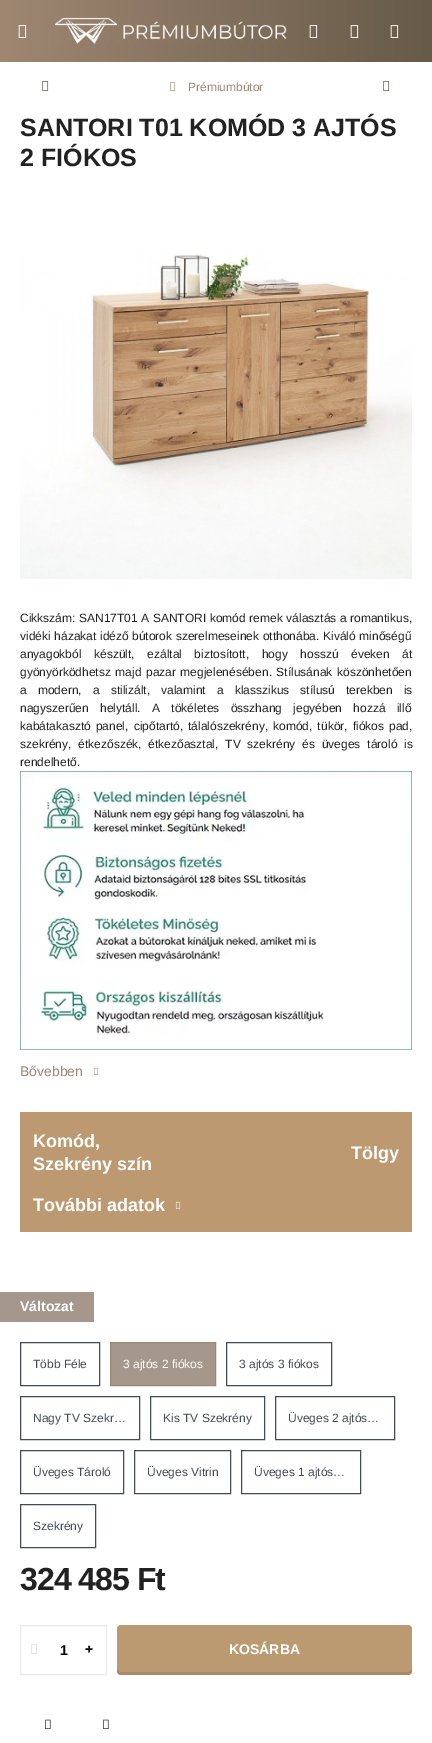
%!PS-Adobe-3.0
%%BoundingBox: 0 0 432 1743
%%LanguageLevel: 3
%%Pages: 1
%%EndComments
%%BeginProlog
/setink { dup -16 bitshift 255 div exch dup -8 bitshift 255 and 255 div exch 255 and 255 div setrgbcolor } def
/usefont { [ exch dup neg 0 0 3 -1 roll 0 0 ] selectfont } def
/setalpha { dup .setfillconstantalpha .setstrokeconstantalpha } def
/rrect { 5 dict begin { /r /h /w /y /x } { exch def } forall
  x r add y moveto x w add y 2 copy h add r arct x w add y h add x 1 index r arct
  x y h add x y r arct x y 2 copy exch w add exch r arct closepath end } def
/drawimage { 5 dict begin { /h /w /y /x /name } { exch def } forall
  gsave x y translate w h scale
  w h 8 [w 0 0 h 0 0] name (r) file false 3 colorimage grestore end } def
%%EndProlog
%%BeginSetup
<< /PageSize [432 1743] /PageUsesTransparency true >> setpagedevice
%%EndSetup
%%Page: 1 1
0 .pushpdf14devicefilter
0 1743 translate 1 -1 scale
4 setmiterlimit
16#FFFFFF setink
0 0 432 1743 rectfill
gsave 0 0 moveto 432 0 lineto 432 62 lineto 0 62 lineto closepath clip newpath
<< /ShadingType 2 /ColorSpace /DeviceRGB /Coords [0 31 432 31] /Extend [true true] /Function << /FunctionType 2 /Domain [0 1] /C0 [0.624 0.529 0.447] /C1 [0.4 0.353 0.282] /N 1 >> >> shfill grestore
(img1.raw) 18 25 9 13 drawimage
(img2.raw) 55 17 232 27 drawimage
(img3.raw) 309 25 9 13 drawimage
(img4.raw) 350 25 9 13 drawimage
(img5.raw) 390 25 9 13 drawimage
(img6.raw) 42 81 7 10 drawimage
(img7.raw) 170 82 6 9 drawimage
/LiberationSans-Regular 12 usefont
16#9F8772 setink
188 91 moveto (Prémiumbútor) show
(img6.raw) 383 81 7 10 drawimage
/LiberationSans-Bold 25 usefont
16#222222 setink
20 136 moveto (SANTORI T01 KOMÓD 3 AJTÓS) show
20 166 moveto (2 FIÓKOS) show
(img8.raw) 20 254 392 325 drawimage
/LiberationSans-Regular 12 usefont
20 622 moveto 0.25 0 32 (Cikkszám: SAN17T01 A SANTORI komód remek választás a romantikus,) widthshow
20 640 moveto 0.25 0 32 (vidéki házakat idéző bútorok szerelmeseinek otthonába. Kiváló minőségű) widthshow
20 658 moveto 9.25 0 32 (anyagokból készült, ezáltal biztosított, hogy hosszú éveken át) widthshow
20 676 moveto 1.25 0 32 (gyönyörködhetsz majd pazar megjelenésében. Stílusának köszönhetően) widthshow
20 694 moveto 7.75 0 32 (a modern, a stilizált, valamint a klasszikus stílusú terekben is) widthshow
20 712 moveto 8 0 32 (nagyszerűen helytáll. A tökéletes összhang jegyében hozzá illő) widthshow
20 730 moveto 1.75 0 32 (kabátakasztó panel, cipőtartó, tálalószekrény, komód, tükör, fiókos pad,) widthshow
20 748 moveto 3.5 0 32 (szekrény, étkezőszék, étkezőasztal, TV szekrény és üveges tároló is) widthshow
20 766 moveto (rendelhető.) show
(img9.raw) 20 771 392 279 drawimage
/LiberationSans-Regular 14 usefont
16#9F8772 setink
20 1076 moveto (Bővebben) show
(img10.raw) 93 1067 6 8 drawimage
16#BC9970 setink
20 1112 392 120 rectfill
/LiberationSans-Bold 18 usefont
16#FFFFFF setink
[
    [(Komód,) 33 1147]
    [(Szekrény szín) 33 1170]
    [(Tölgy) 351 1159]
    [(További adatok) 33 1211]
] { aload pop moveto show } forall
(img11.raw) 175 1201 6 8 drawimage
16#A5978B setink
0 1292 94 30 rectfill
/LiberationSans-Bold 14 usefont
16#FFFFFF setink
20 1311 moveto (Változat) show
16#434B58 setink
20.5 1342.5 79 43 rectstroke
/LiberationSans-Regular 12 usefont
33 1368 moveto (Több Féle) show
16#A5978B setink
110.5 1342.5 moveto 215.5 1342.5 lineto 215.5 1385.5 lineto 110.5 1385.5 lineto closepath gsave fill grestore
16#9F8772 setink
stroke
16#FFFFFF setink
123 1368 moveto (3 ajtós 2 fiókos) show
16#434B58 setink
226.5 1342.5 105 43 rectstroke
239 1368 moveto (3 ajtós 3 fiókos) show
20.5 1396.5 119 43 rectstroke
33 1422 moveto (Nagy TV Szekr…) show
150.5 1396.5 114 43 rectstroke
163 1422 moveto (Kis TV Szekrény) show
275.5 1396.5 119 43 rectstroke
288 1422 moveto (Üveges 2 ajtós…) show
20.5 1450.5 103 43 rectstroke
33 1476 moveto (Üveges Tároló) show
134.5 1450.5 96 43 rectstroke
147 1476 moveto (Üveges Vitrin) show
241.5 1450.5 119 43 rectstroke
254 1476 moveto (Üveges 1 ajtós…) show
20.5 1504.5 75 43 rectstroke
33 1530 moveto (Szekrény) show
/LiberationSans-Bold 32 usefont
16#222222 setink
20 1590 moveto -1 0 (324 485 Ft) ashow
16#EAEAEA setink
20.5 1625.5 86 49 rectstroke
(img12.raw) 31 1644 6 10 drawimage
/LiberationSans-Bold 14 usefont
16#000000 setink
60 1655 moveto (1) show
/NotoSans-Black 14 usefont
85 1654 moveto (+) show
16#BC9A71 setink
117 1625 295 50 4 rrect fill
0.1 setalpha
16#000000 setink
117 1668 moveto 117 1671 117 1674 120 1675 curveto 408 1675 lineto 412 1675 412 1671 412 1668 curveto 412 1670 410 1672 408 1672 curveto 121 1672 lineto 119 1672 117 1670 117 1668 curveto closepath fill
/LiberationSans-Bold 14 usefont
1 setalpha
16#FFFFFF setink
229 1654 moveto (KOSÁRBA) show
(img13.raw) 45 1719 6 10 drawimage
(img13.raw) 103 1719 6 10 drawimage
.poppdf14devicefilter showpage
%%EOF
